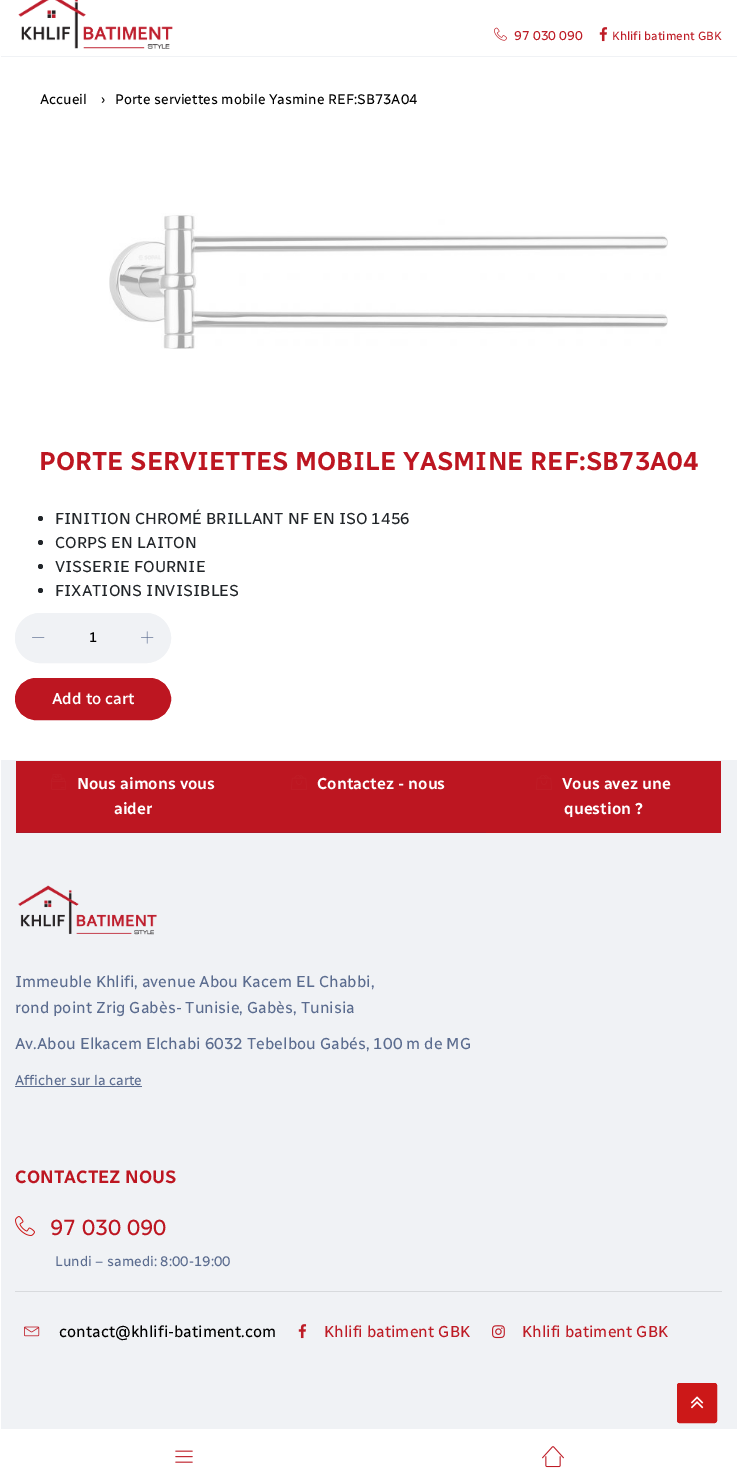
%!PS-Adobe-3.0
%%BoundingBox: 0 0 737 1483
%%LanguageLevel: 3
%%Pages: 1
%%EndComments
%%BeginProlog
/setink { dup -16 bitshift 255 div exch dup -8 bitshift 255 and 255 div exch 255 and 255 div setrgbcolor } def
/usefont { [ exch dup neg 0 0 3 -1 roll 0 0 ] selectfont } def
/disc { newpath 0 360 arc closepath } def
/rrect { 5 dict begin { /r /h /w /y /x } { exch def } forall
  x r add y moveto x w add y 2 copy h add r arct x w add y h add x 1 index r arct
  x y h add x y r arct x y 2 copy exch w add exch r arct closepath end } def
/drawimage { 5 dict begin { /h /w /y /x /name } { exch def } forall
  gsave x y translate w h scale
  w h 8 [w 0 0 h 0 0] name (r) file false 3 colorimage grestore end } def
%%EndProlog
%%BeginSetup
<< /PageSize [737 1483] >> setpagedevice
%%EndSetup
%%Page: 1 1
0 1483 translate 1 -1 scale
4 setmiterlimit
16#FFFFFF setink
0 0 737 1483 rectfill
16#F0F2F5 setink
0 56 737 1 rectfill
(img1.raw) 18 0 155 49 drawimage
(img2.raw) 494 27 13 14 drawimage
/RadioCanada-Regular 13 usefont
16#BE1C26 setink
514 40 moveto (97 030 090) show
(img3.raw) 599 27 9 15 drawimage
/RadioCanada-Regular 12 usefont
612 40 moveto (Khlifi batiment GBK) show
16#F0F2F5 setink
0 1428 737 1 rectfill
16#FFFFFF setink
0 56 1 1373 rectfill
/RadioCanada-Regular 14 usefont
16#000000 setink
[
    [(Accueil) 40 104]
    [(›) 101 104]
    [(Porte serviettes mobile Yasmine REF:SB73A04) 115 104]
] { aload pop moveto show } forall
(img4.raw) 109 213 559 136 drawimage
/RadioCanada-SemiBold 26 usefont
16#BD1621 setink
39 470 moveto (PORTE SERVIETTES MOBILE YASMINE REF:SB73A04) show
16#212529 setink
40.5 518.5 2.5 disc fill
/RadioCanada-Regular 16 usefont
55 524 moveto (FINITION CHROMÉ BRILLANT NF EN ISO 1456) show
40.5 542.5 2.5 disc fill
55 548 moveto (CORPS EN LAITON) show
40.5 566.5 2.5 disc fill
55 572 moveto (VISSERIE FOURNIE) show
40.5 590.5 2.5 disc fill
55 596 moveto (FIXATIONS INVISIBLES) show
16#F0F2F5 setink
15.5 613.5 155 49 24.5 rrect gsave fill grestore
stroke
(img5.raw) 32 637 13 1 drawimage
/RadioCanada-Regular 14 usefont
16#000000 setink
89 642 moveto (1) show
(img6.raw) 141 631 13 13 drawimage
16#BD1621 setink
15.5 678.5 155 41 20.5 rrect gsave fill grestore
stroke
/RadioCanada-Medium 16 usefont
16#FFFFFF setink
52 704 moveto (Add to cart) show
[
    [1 760 736 668 16#F0F2F5]
    [16 761 705 72 16#BD1621]
    [16 832 470 1 16#AC192A]
] { aload pop setink rectfill } forall
(img7.raw) 51 774 15 16 drawimage
/RadioCanada-SemiBold 16 usefont
16#FFFFFF setink
77 789 moveto (Nous aimons vous) show
114 814 moveto (aider) show
(img8.raw) 291 775 16 15 drawimage
317 789 moveto (Contactez - nous) show
(img8.raw) 536 775 16 15 drawimage
562 789 moveto (Vous avez une) show
564 814 moveto (question ?) show
(img9.raw) 18 885 139 50 drawimage
/RadioCanada-Regular 16 usefont
16#5B6C8F setink
[
    [(Immeuble Khlifi, avenue Abou Kacem EL Chabbi,) 15 987]
    [(rond point Zrig Gabès- Tunisie, Gabès, Tunisia) 15 1013]
    [(Av.Abou Elkacem Elchabi 6032 Tebelbou Gabés, 100 m de MG) 15 1049]
] { aload pop moveto show } forall
/RadioCanada-Regular 14 usefont
15 1085 moveto (Afficher sur la carte) show
15 1086 127 1 rectfill
/RadioCanada-SemiBold 18 usefont
16#BD1621 setink
15 1183 moveto (CONTACTEZ NOUS) show
(img10.raw) 15 1216 20 20 drawimage
/RadioCanada-Regular 22 usefont
50 1235 moveto (97 030 090) show
/RadioCanada-Regular 14 usefont
16#5B6C8F setink
55 1266 moveto (Lundi – samedi: 8:00-19:00) show
16#D8DADD setink
15 1291 707 1 rectfill
(img11.raw) 24 1326 16 11 drawimage
/RadioCanada-Regular 16 usefont
16#000000 setink
59 1337 moveto (contact@khlifi-batiment.com) show
(img12.raw) 298 1324 9 15 drawimage
16#BE1C26 setink
324 1337 moveto (Khlifi batiment GBK) show
(img13.raw) 492 1325 13 14 drawimage
522 1337 moveto (Khlifi batiment GBK) show
16#CC1818 setink
677.5 1383.5 39 39 2 rrect gsave fill grestore
stroke
(img14.raw) 691 1396 13 13 drawimage
(img15.raw) 175 1450 18 13 drawimage
(img16.raw) 542 1446 22 22 drawimage
showpage
%%EOF
